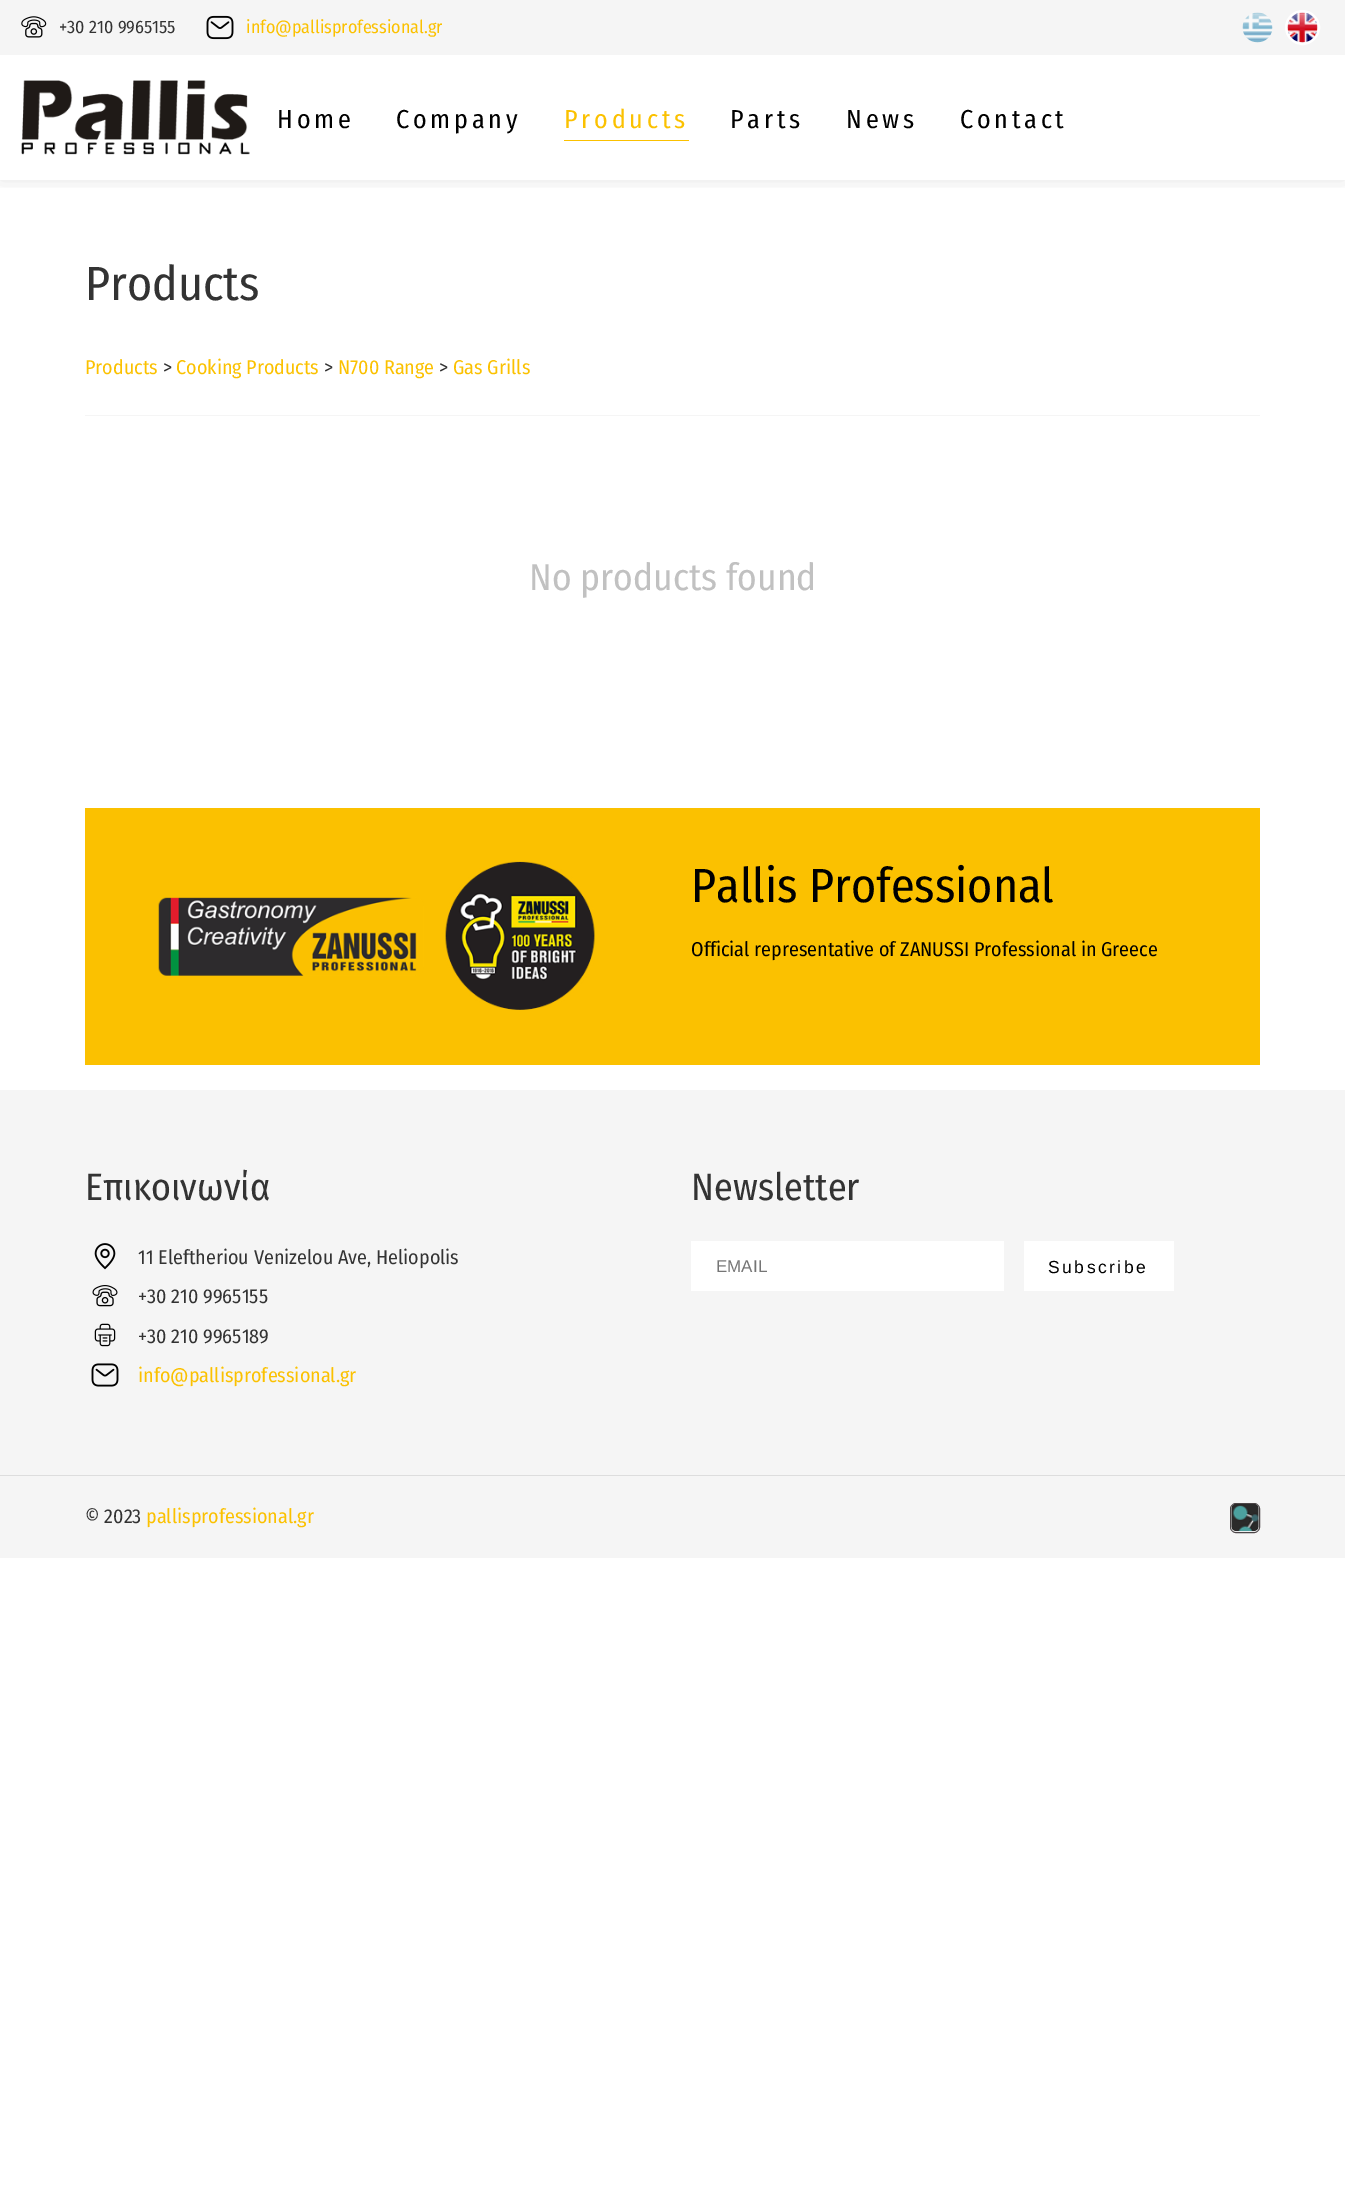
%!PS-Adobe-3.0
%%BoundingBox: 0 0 1345 2192
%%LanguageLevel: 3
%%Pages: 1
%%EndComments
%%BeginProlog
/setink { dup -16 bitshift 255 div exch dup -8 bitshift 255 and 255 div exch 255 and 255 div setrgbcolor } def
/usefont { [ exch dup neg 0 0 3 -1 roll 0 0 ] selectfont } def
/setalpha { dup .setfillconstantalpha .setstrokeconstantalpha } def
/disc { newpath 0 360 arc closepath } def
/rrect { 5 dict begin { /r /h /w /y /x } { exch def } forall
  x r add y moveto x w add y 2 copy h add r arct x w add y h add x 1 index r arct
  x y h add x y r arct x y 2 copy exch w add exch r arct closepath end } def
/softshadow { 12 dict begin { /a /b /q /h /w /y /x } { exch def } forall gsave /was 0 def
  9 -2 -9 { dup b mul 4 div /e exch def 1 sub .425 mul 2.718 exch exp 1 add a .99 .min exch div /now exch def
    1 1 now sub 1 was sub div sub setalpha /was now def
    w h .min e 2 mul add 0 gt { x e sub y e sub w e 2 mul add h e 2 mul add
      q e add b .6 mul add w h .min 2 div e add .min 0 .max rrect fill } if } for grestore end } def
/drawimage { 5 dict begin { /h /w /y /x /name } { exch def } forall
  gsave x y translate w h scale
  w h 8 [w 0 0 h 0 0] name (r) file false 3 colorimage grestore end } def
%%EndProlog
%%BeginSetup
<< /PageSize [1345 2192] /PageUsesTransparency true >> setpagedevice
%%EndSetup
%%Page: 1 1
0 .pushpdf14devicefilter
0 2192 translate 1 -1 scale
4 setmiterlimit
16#FFFFFF setink
0 0 1345 2192 rectfill
gsave
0 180 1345 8 rectclip
16#000000 setink
0 55 1345 125 0 9.5 0.1 softshadow
grestore
16#F5F5F5 setink
0 0 1345 55 rectfill
(img1.raw) 21 16 26 22 drawimage
/FiraSansCondensed-Regular 18 usefont
16#333333 setink
59 33 moveto (+30 210 9965155) show
(img2.raw) 206 15 28 25 drawimage
16#FBC100 setink
246 33 moveto (info@pallisprofessional.gr) show
(img3.raw) 1242 12 31 31 drawimage
16#FFFFFF setink
3 setlinewidth
1302.5 27.5 16 disc stroke
(img4.raw) 1287 12 31 31 drawimage
(img5.raw) 21 80 229 75 drawimage
/FiraSansCondensed-Regular 26 usefont
16#000000 setink
277 128 moveto 3.75 0 (Home) ashow
396 128 moveto 3.75 0 (Company) ashow
16#FBC100 setink
564 140 125 1 rectfill
564 128 moveto 3.75 0 (Products) ashow
16#000000 setink
730 128 moveto 3.75 0 (Parts) ashow
846 128 moveto 3.75 0 (News) ashow
960 128 moveto 3.75 0 (Contact) ashow
/FiraSansCondensed-Regular 48 usefont
16#333333 setink
85 300 moveto (Products) show
/FiraSansCondensed-Regular 20 usefont
16#FBC100 setink
85 374 moveto (Products) show
16#333333 setink
163 374 moveto (>) show
16#FBC100 setink
176 374 moveto (Cooking Products) show
16#333333 setink
324 374 moveto (>) show
16#FBC100 setink
338 374 moveto (N700 Range) show
16#333333 setink
439 374 moveto (>) show
16#FBC100 setink
453 374 moveto (Gas Grills) show
16#F5F5F5 setink
85 415 1175 1 rectfill
/FiraSansCondensed-Regular 37.5 usefont
16#C1C1C1 setink
529 590 moveto (No products found) show
16#FBC100 setink
85 808 1175 257 rectfill
(img6.raw) 158 861 437 149 drawimage
/FiraSansCondensed-Regular 48 usefont
16#000000 setink
691 902 moveto (Pallis Professional) show
/FiraSansCondensed-Regular 20 usefont
691 956 moveto (Official representative of ZANUSSI Professional in Greece) show
16#F5F5F5 setink
0 1090 1345 385 rectfill
/FiraSansCondensed-Regular 38 usefont
16#333333 setink
85 1200 moveto (Επικοινωνία) show
(img7.raw) 94 1243 22 27 drawimage
/FiraSansCondensed-Regular 20 usefont
138 1264 moveto (11 Eleftheriou Venizelou Ave, Heliopolis) show
(img8.raw) 92 1285 26 22 drawimage
138 1303 moveto (+30 210 9965155) show
(img9.raw) 94 1323 22 24 drawimage
138 1343 moveto (+30 210 9965189) show
(img10.raw) 91 1363 28 24 drawimage
16#FBC100 setink
138 1382 moveto (info@pallisprofessional.gr) show
/FiraSansCondensed-Regular 38 usefont
16#333333 setink
691 1200 moveto (Newsletter) show
16#FFFFFF setink
691 1241 313 50 rectfill
/LiberationSans-Regular 17 usefont
16#757575 setink
716 1272 moveto (EMAIL) show
16#FFFFFF setink
1024 1241 150 50 rectfill
/LiberationSans-Regular 17.5 usefont
16#000000 setink
1048 1273 moveto 2.5 0 (Subscribe) ashow
16#F5F5F5 setink
0 1476 1345 82 rectfill
16#DDDDDD setink
0 1475 1345 1 rectfill
/FiraSansCondensed-Regular 20 usefont
16#333333 setink
85 1523 moveto (© 2023) show
16#FBC100 setink
146 1523 moveto (pallisprofessional.gr) show
16#4B4547 setink
1 setlinewidth
1230.5 1503.5 29 29 5.5 rrect stroke
(img11.raw) 1231 1504 28 28 drawimage
.poppdf14devicefilter showpage
%%EOF
